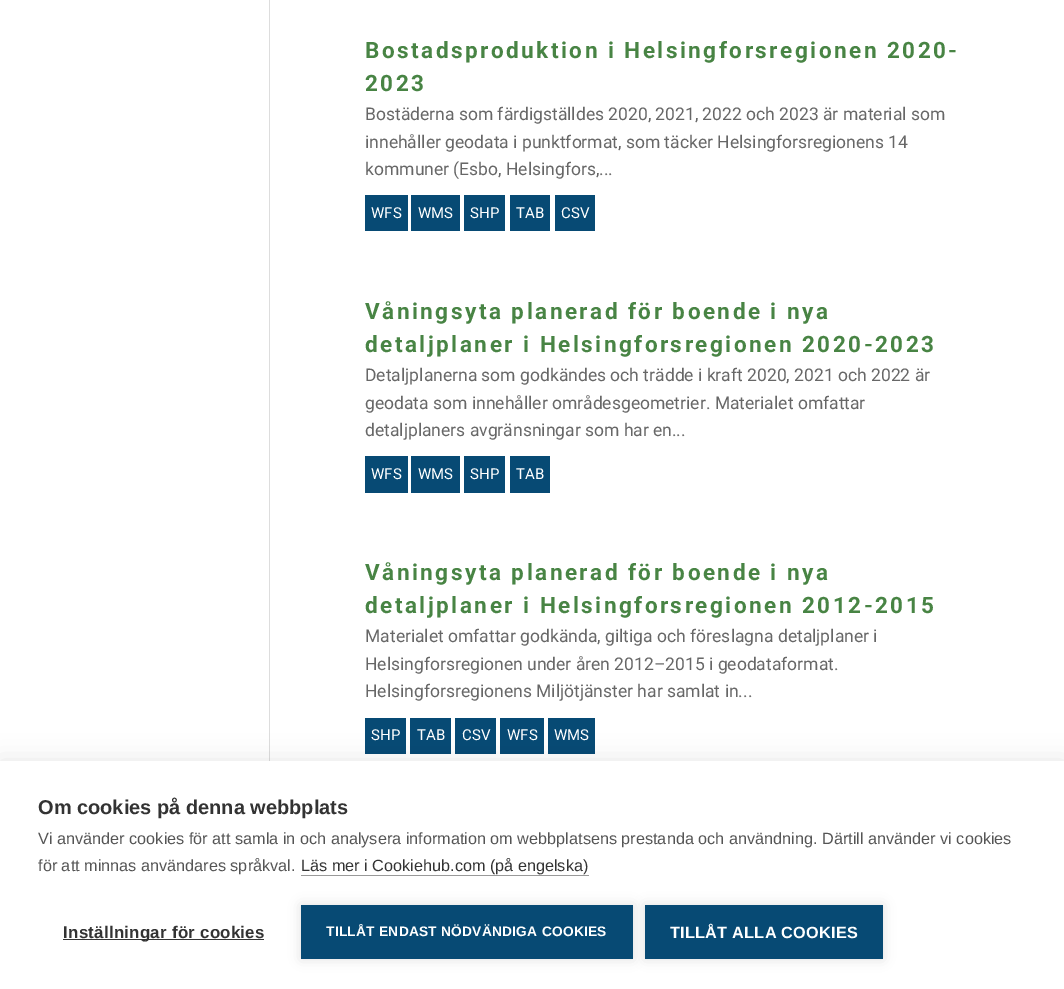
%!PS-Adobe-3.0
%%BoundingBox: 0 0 1064 989
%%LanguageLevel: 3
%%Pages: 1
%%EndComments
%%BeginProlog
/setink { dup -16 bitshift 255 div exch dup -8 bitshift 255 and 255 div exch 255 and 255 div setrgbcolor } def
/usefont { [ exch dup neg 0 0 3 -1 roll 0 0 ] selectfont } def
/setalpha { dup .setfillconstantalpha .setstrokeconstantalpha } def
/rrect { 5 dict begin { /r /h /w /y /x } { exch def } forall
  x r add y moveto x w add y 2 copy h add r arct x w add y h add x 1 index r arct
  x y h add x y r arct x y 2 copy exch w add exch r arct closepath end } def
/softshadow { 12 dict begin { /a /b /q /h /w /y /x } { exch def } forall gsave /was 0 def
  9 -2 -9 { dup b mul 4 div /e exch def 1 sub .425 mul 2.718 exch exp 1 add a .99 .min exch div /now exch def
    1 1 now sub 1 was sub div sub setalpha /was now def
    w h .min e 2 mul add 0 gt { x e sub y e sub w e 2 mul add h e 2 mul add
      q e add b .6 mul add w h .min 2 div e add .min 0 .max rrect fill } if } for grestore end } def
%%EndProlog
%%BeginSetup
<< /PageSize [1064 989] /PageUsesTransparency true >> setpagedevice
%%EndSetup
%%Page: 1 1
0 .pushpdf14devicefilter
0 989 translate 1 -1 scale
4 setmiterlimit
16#FFFFFF setink
0 0 1064 989 rectfill
16#DDDDDD setink
269 0 1 761 rectfill
/Roboto-Bold 22.5 usefont
16#488444 setink
365 58 moveto 2.5 0 (Bostadsproduktion i Helsingforsregionen 2020-) ashow
365 91 moveto 2.5 0 (2023) ashow
/Roboto-Regular 17.5 usefont
16#676767 setink
[
    [(Bostäderna som färdigställdes 2020, 2021, 2022 och 2023 är material som) 365 120]
    [(innehåller geodata i punktformat, som täcker Helsingforsregionens 14) 365 148]
    [(kommuner \(Esbo, Helsingfors,...) 365 175]
] { aload pop moveto show } forall
16#074A74 setink
365 195 43 36 rectfill
/Roboto-Regular 15 usefont
16#FFFFFF setink
371 218 moveto (WFS) show
16#074A74 setink
411 195 49 36 rectfill
16#FFFFFF setink
418 218 moveto (WMS) show
16#074A74 setink
464 195 41 36 rectfill
16#FFFFFF setink
470 218 moveto (SHP) show
16#074A74 setink
510 195 40 36 rectfill
16#FFFFFF setink
516 218 moveto (TAB) show
16#074A74 setink
555 195 40 36 rectfill
16#FFFFFF setink
561 218 moveto (CSV) show
/Roboto-Bold 22.5 usefont
16#488444 setink
365 319 moveto 2.5 0 (Våningsyta planerad för boende i nya) ashow
365 352 moveto 2.5 0 (detaljplaner i Helsingforsregionen 2020-2023) ashow
/Roboto-Regular 17.5 usefont
16#676767 setink
[
    [(Detaljplanerna som godkändes och trädde i kraft 2020, 2021 och 2022 är) 365 381]
    [(geodata som innehåller områdesgeometrier. Materialet omfattar) 365 409]
    [(detaljplaners avgränsningar som har en...) 365 436]
] { aload pop moveto show } forall
16#074A74 setink
365 456 43 37 rectfill
/Roboto-Regular 15 usefont
16#FFFFFF setink
371 479 moveto (WFS) show
16#074A74 setink
411 456 49 37 rectfill
16#FFFFFF setink
418 479 moveto (WMS) show
16#074A74 setink
464 456 41 37 rectfill
16#FFFFFF setink
470 479 moveto (SHP) show
16#074A74 setink
510 456 40 37 rectfill
16#FFFFFF setink
516 479 moveto (TAB) show
/Roboto-Bold 22.5 usefont
16#488444 setink
365 580 moveto 2.5 0 (Våningsyta planerad för boende i nya) ashow
365 613 moveto 2.5 0 (detaljplaner i Helsingforsregionen 2012-2015) ashow
/Roboto-Regular 17.5 usefont
16#676767 setink
[
    [(Materialet omfattar godkända, giltiga och föreslagna detaljplaner i) 365 642]
    [(Helsingforsregionen under åren 2012–2015 i geodataformat.) 365 670]
    [(Helsingforsregionens Miljötjänster har samlat in...) 365 697]
] { aload pop moveto show } forall
16#074A74 setink
365 718 41 36 rectfill
/Roboto-Regular 15 usefont
16#FFFFFF setink
371 740 moveto (SHP) show
16#074A74 setink
410 718 41 36 rectfill
16#FFFFFF setink
417 740 moveto (TAB) show
16#074A74 setink
455 718 41 36 rectfill
16#FFFFFF setink
462 740 moveto (CSV) show
16#074A74 setink
500 718 44 36 rectfill
16#FFFFFF setink
507 740 moveto (WFS) show
16#074A74 setink
548 718 47 36 rectfill
16#FFFFFF setink
554 740 moveto (WMS) show
16#000000 setink
0 761 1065 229 0 12.5 0.1 softshadow
16#FFFFFF setink
0 761 1064 228 rectfill
/LiberationSans-Bold 20 usefont
16#333333 setink
38 814 moveto (Om cookies på denna webbplats) show
/LiberationSans-Regular 16.25 usefont
16#555555 setink
38 844 moveto (Vi använder cookies för att samla in och analysera information om webbplatsens prestanda och användning. Därtill använder vi cookies) show
38 871 moveto (för att minnas användares språkval.) show
16#333333 setink
301 871 moveto (Läs mer i Cookiehub.com \(på engelska\)) show
16#999999 setink
301 875 288 1 rectfill
16#333333 setink
63 939 201 1 rectfill
/LiberationSans-Bold 16.9 usefont
63 938 moveto 0.25 0 (Inställningar för cookies) ashow
16#000000 setink
301 905 332 54 0 6 0.12 softshadow
16#074A74 setink
301 905 332 54 rectfill
/LiberationSans-Bold 13.75 usefont
16#FFFFFF setink
326 936 moveto 0.25 0 (TILLÅT ENDAST NÖDVÄNDIGA COOKIES) ashow
16#000000 setink
645 905 238 54 0 6 0.12 softshadow
16#074A74 setink
645 905 238 54 rectfill
/LiberationSans-Bold 16.25 usefont
16#FFFFFF setink
670 938 moveto 0.25 0 (TILLÅT ALLA COOKIES) ashow
.poppdf14devicefilter showpage
%%EOF
